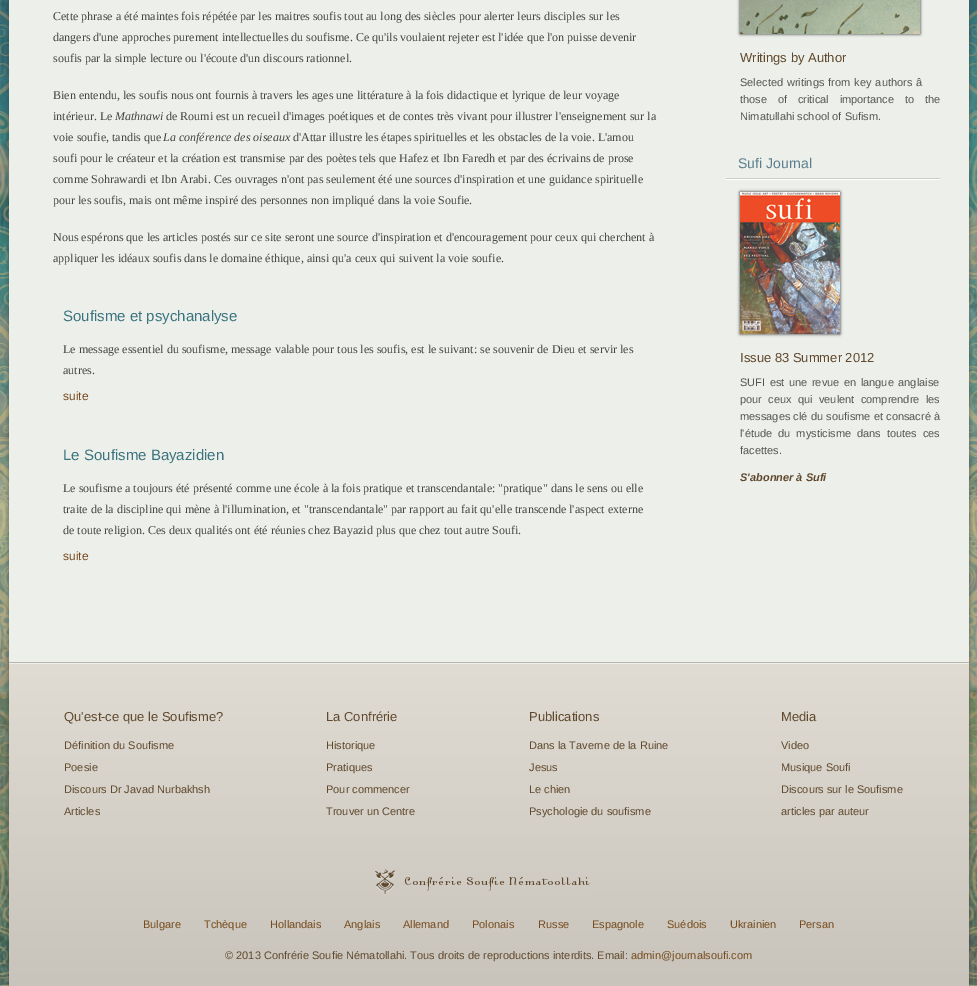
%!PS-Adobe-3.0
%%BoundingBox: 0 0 977 986
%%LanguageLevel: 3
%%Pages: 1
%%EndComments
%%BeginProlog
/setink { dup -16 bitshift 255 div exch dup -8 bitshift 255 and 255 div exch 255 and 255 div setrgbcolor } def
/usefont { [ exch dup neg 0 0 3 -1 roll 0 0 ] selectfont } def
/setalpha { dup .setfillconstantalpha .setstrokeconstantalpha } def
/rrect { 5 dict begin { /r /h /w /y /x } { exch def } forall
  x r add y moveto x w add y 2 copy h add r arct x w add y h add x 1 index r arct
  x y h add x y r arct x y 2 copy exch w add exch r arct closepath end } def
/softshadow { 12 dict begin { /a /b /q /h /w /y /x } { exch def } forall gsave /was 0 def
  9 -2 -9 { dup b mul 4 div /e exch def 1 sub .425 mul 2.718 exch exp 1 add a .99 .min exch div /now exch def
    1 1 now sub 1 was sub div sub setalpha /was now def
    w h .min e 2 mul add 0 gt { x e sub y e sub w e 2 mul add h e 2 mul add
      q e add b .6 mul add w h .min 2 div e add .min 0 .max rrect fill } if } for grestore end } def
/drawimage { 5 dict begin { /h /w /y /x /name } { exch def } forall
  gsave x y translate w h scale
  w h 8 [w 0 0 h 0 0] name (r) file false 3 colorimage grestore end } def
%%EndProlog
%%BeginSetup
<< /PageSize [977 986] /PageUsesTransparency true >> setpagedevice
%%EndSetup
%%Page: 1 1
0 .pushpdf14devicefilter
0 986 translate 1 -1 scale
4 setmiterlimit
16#FFFFFF setink
0 0 977 986 rectfill
(img1.raw) 0 0 977 986 drawimage
(img2.raw) 0 10 977 976 drawimage
(img3.raw) 5 0 968 986 drawimage
/LiberationSerif-Regular 12 usefont
16#444444 setink
[
    [(Cette phrase a été maintes fois répétée par les maitres soufis tout au long des siècles pour alerter leurs disciples sur les) 53 20]
    [(dangers d'une approches purement intellectuelles du soufisme. Ce qu'ils voulaient rejeter est l'idée que l'on puisse devenir) 53 41]
    [(soufis par la simple lecture ou l'écoute d'un discours rationnel.) 53 62]
    [(Bien entendu, les soufis nous ont fournis à travers les ages une littérature à la fois didactique et lyrique de leur voyage) 53 99]
    [(intérieur. Le) 53 120]
] { aload pop moveto show } forall
/LiberationSerif-Italic 12 usefont
115 120 moveto (Mathnawi) show
/LiberationSerif-Regular 12 usefont
166 120 moveto (de Roumi est un recueil d'images poétiques et de contes très vivant pour illustrer l'enseignement sur la) show
53 141 moveto (voie soufie, tandis que) show
/LiberationSerif-Italic 12 usefont
163 141 moveto (La conférence des oiseaux) show
/LiberationSerif-Regular 12 usefont
[
    [(d'Attar illustre les étapes spirituelles et les obstacles de la voie. L'amou) 293 141]
    [(soufi pour le créateur et la création est transmise par des poètes tels que Hafez et Ibn Faredh et par des écrivains de prose) 53 162]
    [(comme Sohrawardi et Ibn Arabi. Ces ouvrages n'ont pas seulement été une sources d'inspiration et une guidance spirituelle) 53 183]
    [(pour les soufis, mais ont même inspiré des personnes non impliqué dans la voie Soufie.) 53 204]
    [(Nous espérons que les articles postés sur ce site seront une source d'inspiration et d'encouragement pour ceux qui cherchent à) 53 241]
    [(appliquer les idéaux soufis dans le domaine éthique, ainsi qu'a ceux qui suivent la voie soufie.) 53 262]
] { aload pop moveto show } forall
/LiberationSans-Regular 15 usefont
16#3B747F setink
63 321 moveto (Soufisme et psychanalyse) show
/LiberationSerif-Regular 12 usefont
16#444444 setink
63 353 moveto (Le message essentiel du soufisme, message valable pour tous les soufis, est le suivant: se souvenir de Dieu et servir les) show
63 374 moveto (autres.) show
/LiberationSans-Regular 12 usefont
16#764A1C setink
63 400 moveto (suite) show
/LiberationSans-Regular 15 usefont
16#3B747F setink
63 460 moveto (Le Soufisme Bayazidien) show
/LiberationSerif-Regular 12 usefont
16#444444 setink
[
    [(Le soufisme a toujours été présenté comme une école à la fois pratique et transcendantale: "pratique" dans le sens ou elle) 63 492]
    [(traite de la discipline qui mène à l'illumination, et "transcendantale" par rapport au fait qu'elle transcende l'aspect externe) 63 513]
    [(de toute religion. Ces deux qualités ont été réunies chez Bayazid plus que chez tout autre Soufi.) 63 534]
] { aload pop moveto show } forall
/LiberationSans-Regular 12 usefont
16#764A1C setink
63 560 moveto (suite) show
16#333333 setink
740 -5 180 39 0 1.5 1 softshadow
(img4.raw) 740 0 180 34 drawimage
/LiberationSans-Regular 13 usefont
16#5F482C setink
740 62 moveto (Writings by Author) show
/LiberationSans-Regular 11 usefont
16#555555 setink
740 86 moveto 1 0 32 (Selected writings from key authors â) widthshow
740 103 moveto 7.75 0 32 (those of critical importance to the) widthshow
740 120 moveto (Nimatullahi school of Sufism.) show
(img5.raw) 726 178 214 2 drawimage
/LiberationSans-Regular 14 usefont
16#5B7E8C setink
738 168 moveto (Sufi Journal) show
16#333333 setink
740 192 100 142 0 1.5 1 softshadow
(img6.raw) 740 192 100 142 drawimage
/LiberationSans-Regular 13 usefont
16#5F482C setink
740 362 moveto (Issue 83 Summer 2012) show
/LiberationSans-Regular 11 usefont
16#555555 setink
740 386 moveto 1.5 0 32 (SUFI est une revue en langue anglaise) widthshow
740 403 moveto 3.25 0 32 (pour ceux qui veulent comprendre les) widthshow
740 420 moveto 0.25 0 32 (messages clé du soufisme et consacré à) widthshow
740 437 moveto 3 0 32 (l'étude du mysticisme dans toutes ces) widthshow
740 454 moveto (facettes.) show
/LiberationSans-BoldItalic 11 usefont
16#5F482C setink
740 481 moveto (S'abonner à Sufi) show
16#BAB6AF setink
9 662 960 1 rectfill
gsave 9 664 moveto 969 664 lineto 969 986 lineto 9 986 lineto closepath clip newpath
<< /ShadingType 2 /ColorSpace /DeviceRGB /Coords [489 664 489 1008] /Extend [true true] /Function << /FunctionType 2 /Domain [0 1] /C0 [0.878 0.863 0.827] /C1 [0.776 0.761 0.729] /N 1 >> >> shfill grestore
/LiberationSans-Regular 13 usefont
16#5F482C setink
64 721 moveto (Qu'est-ce que le Soufisme?) show
/LiberationSans-Regular 11 usefont
[
    [(Définition du Soufisme) 64 749]
    [(Poesie) 64 771]
    [(Discours Dr Javad Nurbakhsh) 64 793]
    [(Articles) 64 815]
] { aload pop moveto show } forall
/LiberationSans-Regular 13 usefont
326 721 moveto (La Confrérie) show
/LiberationSans-Regular 11 usefont
[
    [(Historique) 326 749]
    [(Pratiques) 326 771]
    [(Pour commencer) 326 793]
    [(Trouver un Centre) 326 815]
] { aload pop moveto show } forall
/LiberationSans-Regular 13 usefont
529 721 moveto (Publications) show
/LiberationSans-Regular 11 usefont
[
    [(Dans la Taverne de la Ruine) 529 749]
    [(Jesus) 529 771]
    [(Le chien) 529 793]
    [(Psychologie du soufisme) 529 815]
] { aload pop moveto show } forall
/LiberationSans-Regular 13 usefont
781 721 moveto (Media) show
/LiberationSans-Regular 11 usefont
[
    [(Video) 781 749]
    [(Musique Soufi) 781 771]
    [(Discours sur le Soufisme) 781 793]
    [(articles par auteur) 781 815]
] { aload pop moveto show } forall
(img7.raw) 375 869 215 26 drawimage
16#764A1C setink
[
    [(Bulgare) 143 928]
    [(Tchèque) 204 928]
    [(Hollandais) 270 928]
    [(Anglais) 344 928]
    [(Allemand) 403 928]
    [(Polonais) 472 928]
    [(Russe) 538 928]
    [(Espagnole) 592 928]
    [(Suédois) 667 928]
    [(Ukrainien) 730 928]
    [(Persan) 799 928]
] { aload pop moveto show } forall
16#5F482C setink
225 959 moveto (© 2013 Confrérie Soufie Nématollahi. Tous droits de reproductions interdits. Email:) show
16#764A1C setink
631 959 moveto (admin@journalsoufi.com) show
.poppdf14devicefilter showpage
%%EOF
